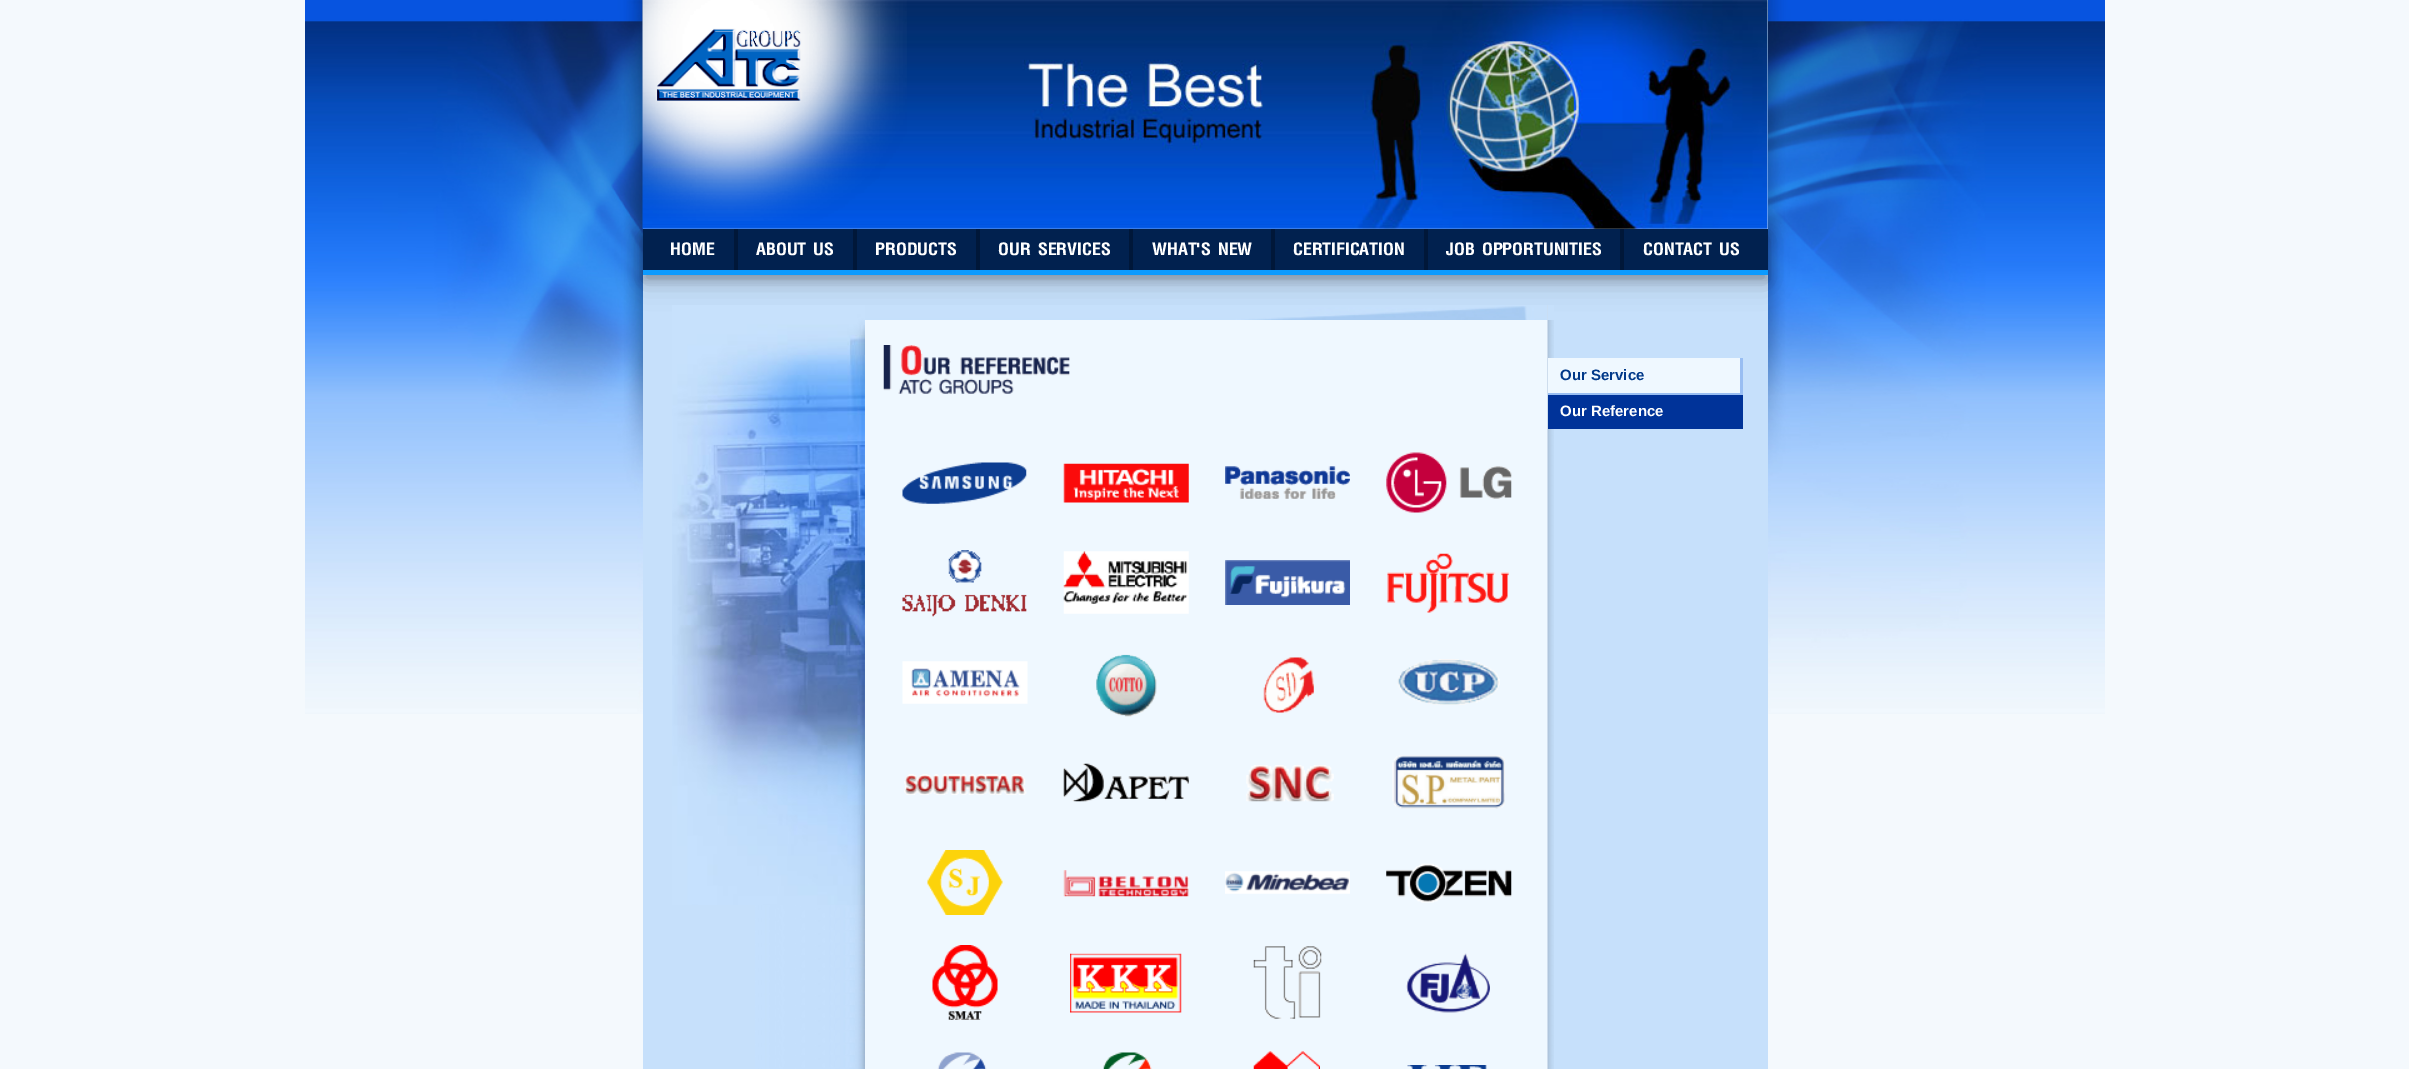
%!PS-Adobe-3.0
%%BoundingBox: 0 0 2409 1069
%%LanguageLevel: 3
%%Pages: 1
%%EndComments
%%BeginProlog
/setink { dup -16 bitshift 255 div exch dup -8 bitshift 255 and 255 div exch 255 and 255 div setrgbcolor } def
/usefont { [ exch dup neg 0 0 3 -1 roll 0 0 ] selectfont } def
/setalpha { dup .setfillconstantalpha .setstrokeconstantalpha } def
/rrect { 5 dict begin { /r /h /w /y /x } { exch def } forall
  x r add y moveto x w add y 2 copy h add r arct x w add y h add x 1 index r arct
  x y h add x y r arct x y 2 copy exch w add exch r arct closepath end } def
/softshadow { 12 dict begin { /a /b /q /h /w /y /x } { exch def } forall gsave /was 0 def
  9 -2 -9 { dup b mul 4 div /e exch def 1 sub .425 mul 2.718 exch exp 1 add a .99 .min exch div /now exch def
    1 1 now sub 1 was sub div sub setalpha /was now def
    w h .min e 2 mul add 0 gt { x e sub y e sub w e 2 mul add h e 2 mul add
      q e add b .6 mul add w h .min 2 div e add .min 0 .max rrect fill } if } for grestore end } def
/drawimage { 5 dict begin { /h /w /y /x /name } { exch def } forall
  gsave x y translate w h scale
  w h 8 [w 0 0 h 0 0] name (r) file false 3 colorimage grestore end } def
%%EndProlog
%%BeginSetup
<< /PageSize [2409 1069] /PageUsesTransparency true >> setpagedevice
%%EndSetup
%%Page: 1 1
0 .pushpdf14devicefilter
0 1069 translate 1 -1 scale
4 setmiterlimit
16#F4F9FD setink
0 0 2409 1069 rectfill
(img1.raw) 305 0 1800 714 drawimage
16#C6E0FB setink
643 0 1125 1069 rectfill
16#000000 setink
643 236 1125 47 0 12.5 0.19 softshadow
643 234 1125 46 0 5 0.2 softshadow
(img2.raw) 642 0 1126 229 drawimage
(img3.raw) 642 0 265 221 drawimage
16#01214F setink
643 229 1125 41 rectfill
16#0C9BFF setink
643 270 1125 5 rectfill
/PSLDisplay-Bold 26.25 usefont
16#FFFFFF setink
670 255 moveto (HOME) show
16#001739 setink
734 229 4 41 rectfill
16#FFFFFF setink
756 255 moveto (ABOUT US) show
16#001739 setink
853 229 4 41 rectfill
16#FFFFFF setink
875 255 moveto (PRODUCTS) show
16#001739 setink
976 229 4 41 rectfill
16#FFFFFF setink
998 255 moveto (OUR SERVICES) show
16#001739 setink
1129 229 4 41 rectfill
16#FFFFFF setink
1152 255 moveto (WHAT'S NEW) show
16#001739 setink
1271 229 4 41 rectfill
16#FFFFFF setink
1293 255 moveto (CERTIFICATION) show
16#001739 setink
1424 229 4 41 rectfill
16#FFFFFF setink
1446 255 moveto (JOB OPPORTUNITIES) show
16#001739 setink
1620 229 4 41 rectfill
16#FFFFFF setink
1643 255 moveto (CONTACT US) show
(img4.raw) 755 905 110 164 drawimage
(img5.raw) 672 305 193 600 drawimage
16#EFF8FF setink
865 305 683 764 rectfill
(img36.raw) 1547 305 7 764 drawimage
(img6.raw) 865 305 683 15 drawimage
(img7.raw) 883 345 187 49 drawimage
(img8.raw) 902 462 125 42 drawimage
(img9.raw) 1063 463 126 40 drawimage
(img10.raw) 1225 466 125 33 drawimage
(img11.raw) 1386 452 126 61 drawimage
(img12.raw) 902 550 125 67 drawimage
(img13.raw) 1063 551 126 63 drawimage
(img14.raw) 1225 560 125 45 drawimage
(img15.raw) 1387 553 122 60 drawimage
(img16.raw) 902 661 126 43 drawimage
(img17.raw) 1096 654 61 63 drawimage
(img18.raw) 1263 657 51 56 drawimage
(img19.raw) 1397 659 103 46 drawimage
(img20.raw) 904 774 123 21 drawimage
(img21.raw) 1063 763 126 39 drawimage
(img22.raw) 1246 765 88 37 drawimage
(img23.raw) 1392 755 113 54 drawimage
(img24.raw) 927 850 76 65 drawimage
(img25.raw) 1063 870 126 27 drawimage
(img26.raw) 1225 871 125 23 drawimage
(img27.raw) 1386 863 126 40 drawimage
(img28.raw) 932 945 66 75 drawimage
(img29.raw) 1070 953 112 60 drawimage
(img30.raw) 1253 946 69 73 drawimage
(img31.raw) 1406 953 84 60 drawimage
(img32.raw) 937 1052 50 17 drawimage
(img33.raw) 1103 1052 49 17 drawimage
(img34.raw) 1253 1051 67 18 drawimage
(img35.raw) 1407 1065 80 4 drawimage
[
    [1548 305 6 15 16#C6E0FB]
    [1548 358 192 35 16#EFF8FF]
    [1740 358 3 37 16#99BEF2]
    [1548 393 195 2 16#99BEF2]
] { aload pop setink rectfill } forall
/LiberationSans-Bold 15 usefont
16#013989 setink
1560 380 moveto (Our Service) show
16#003399 setink
1548 395 195 34 rectfill
16#FFFFFF setink
1560 416 moveto (Our Reference) show
.poppdf14devicefilter showpage
%%EOF
